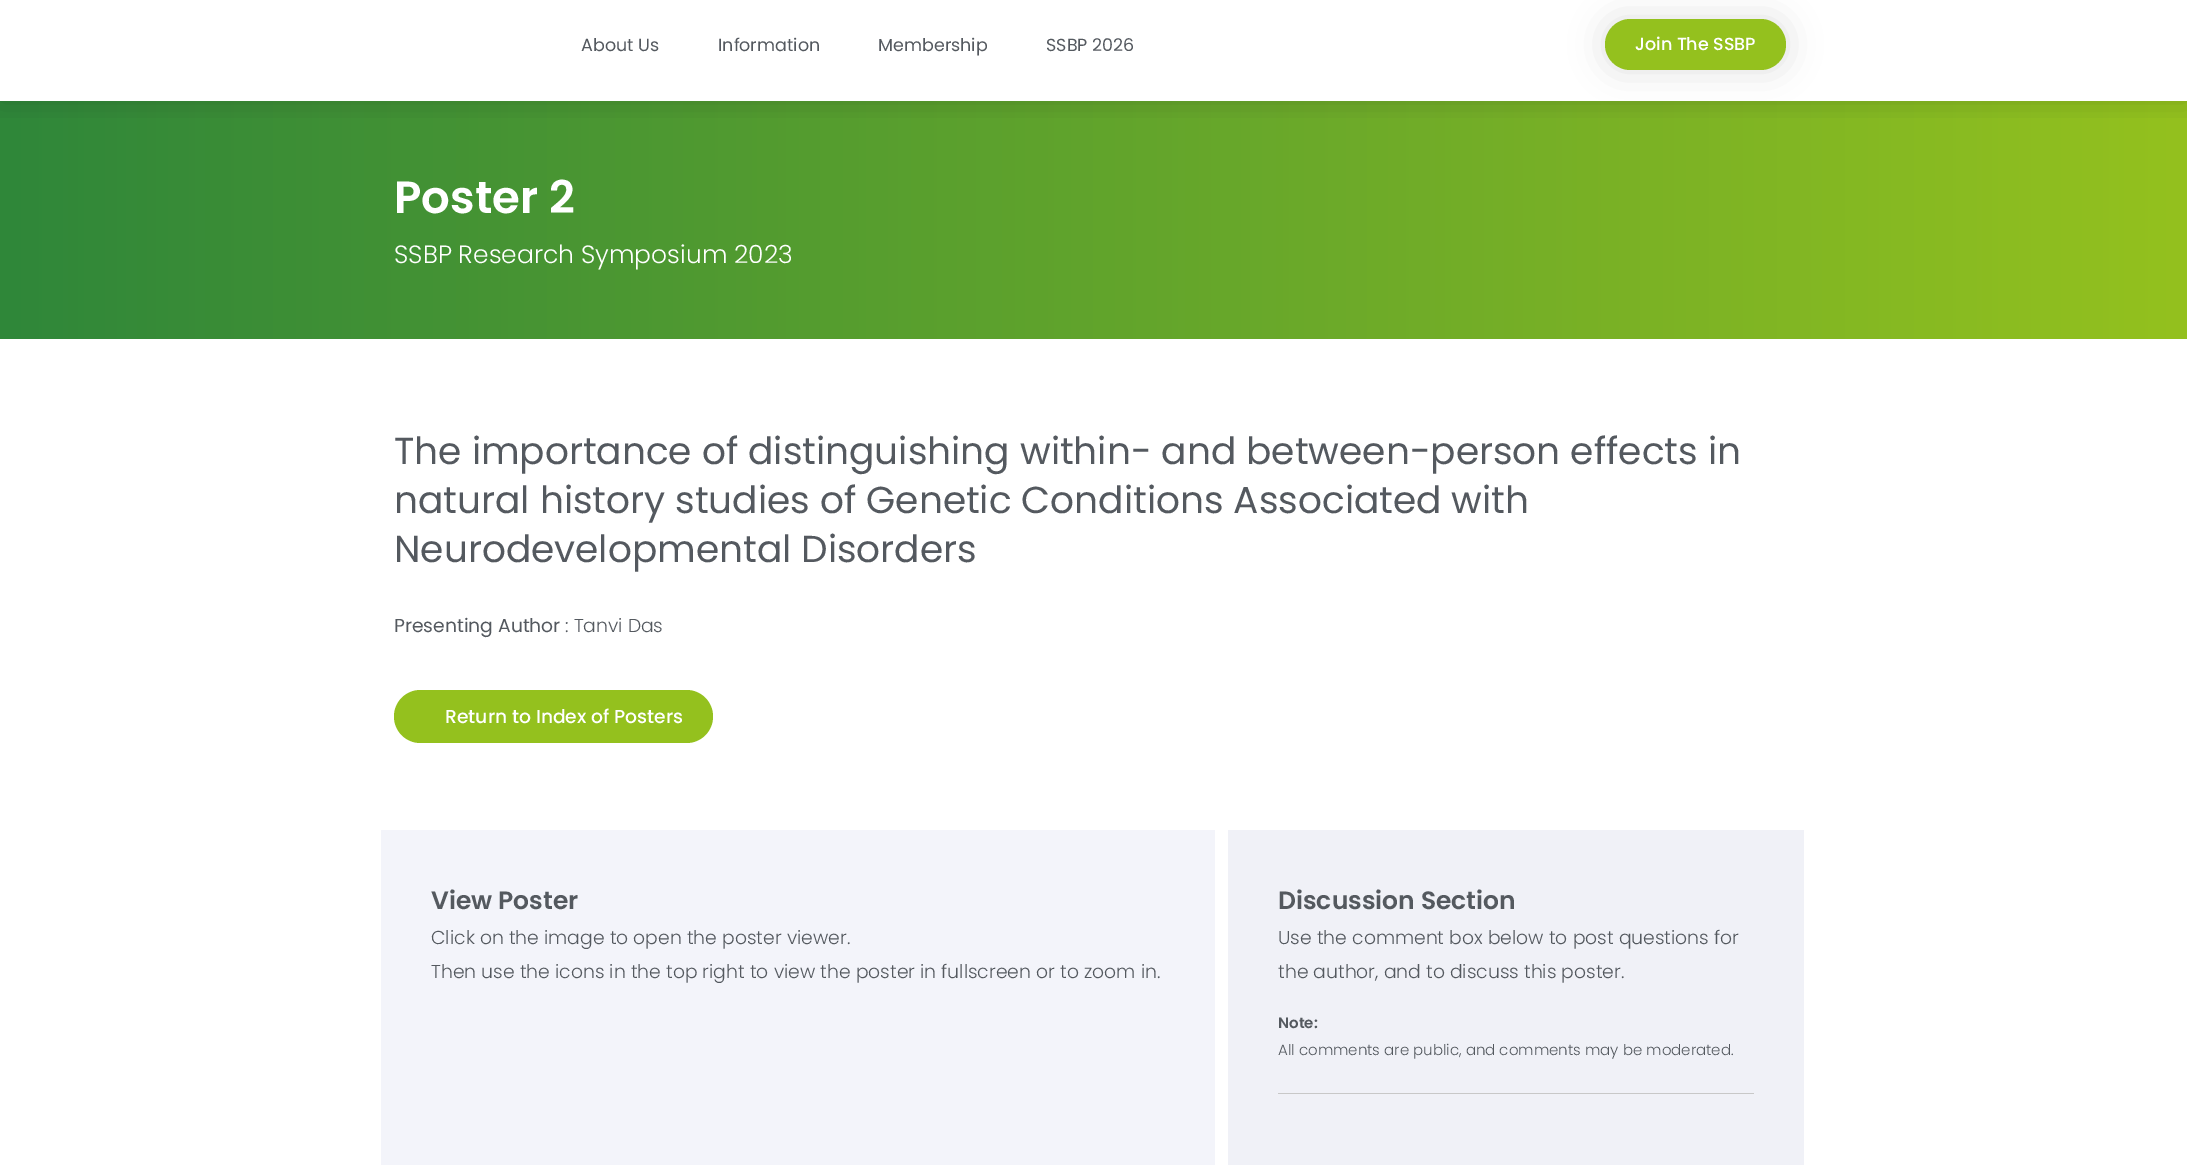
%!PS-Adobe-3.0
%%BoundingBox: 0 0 2187 1165
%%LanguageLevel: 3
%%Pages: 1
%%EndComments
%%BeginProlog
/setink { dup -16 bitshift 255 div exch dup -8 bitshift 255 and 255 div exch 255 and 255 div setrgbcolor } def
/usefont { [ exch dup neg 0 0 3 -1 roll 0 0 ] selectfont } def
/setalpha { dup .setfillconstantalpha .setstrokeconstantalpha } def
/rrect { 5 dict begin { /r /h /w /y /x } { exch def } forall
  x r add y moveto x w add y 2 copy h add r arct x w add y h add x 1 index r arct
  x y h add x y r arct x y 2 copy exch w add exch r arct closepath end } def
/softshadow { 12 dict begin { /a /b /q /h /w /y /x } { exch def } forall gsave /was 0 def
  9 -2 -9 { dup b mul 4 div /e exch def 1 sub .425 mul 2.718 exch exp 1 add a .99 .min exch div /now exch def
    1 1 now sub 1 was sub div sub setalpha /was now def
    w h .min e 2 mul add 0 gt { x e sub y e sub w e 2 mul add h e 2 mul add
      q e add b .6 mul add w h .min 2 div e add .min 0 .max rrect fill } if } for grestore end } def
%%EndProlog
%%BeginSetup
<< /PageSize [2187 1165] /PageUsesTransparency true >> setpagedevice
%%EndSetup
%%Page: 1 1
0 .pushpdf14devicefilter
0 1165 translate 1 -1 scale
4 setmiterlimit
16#FFFFFF setink
0 0 2187 1165 rectfill
gsave 0 101 moveto 2187 101 lineto 2187 339 lineto 0 339 lineto closepath clip newpath
<< /ShadingType 2 /ColorSpace /DeviceRGB /Coords [0 220 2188 220] /Extend [true true] /Function << /FunctionType 2 /Domain [0 1] /C0 [0.184 0.529 0.227] /C1 [0.58 0.757 0.118] /N 1 >> >> shfill grestore
gsave
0 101 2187 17 rectclip
16#000000 setink
0 0 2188 101 0 15 0.15 softshadow
grestore
/Poppins-Regular 17.5 usefont
16#54595F setink
[
    [(About Us) 581 51]
    [(Information) 718 51]
    [(Membership) 878 51]
    [(SSBP 2026) 1046 51]
] { aload pop moveto show } forall
16#000000 setink
1605 19 181 51 25.5 17 0.12 softshadow
16#94C11E setink
1605 19 181 51 25.5 rrect fill
/Poppins-Medium 17.5 usefont
16#FFFFFF setink
1635 50 moveto (Join The SSBP) show
/Poppins-SemiBold 45 usefont
394 213 moveto (Poster 2) show
/Poppins-Light 25 usefont
394 263 moveto (SSBP Research Symposium 2023) show
/Poppins-Regular 37.5 usefont
16#54595F setink
[
    [(The importance of distinguishing within- and between-person effects in) 394 464]
    [(natural history studies of Genetic Conditions Associated with) 394 513]
    [(Neurodevelopmental Disorders) 394 562]
] { aload pop moveto show } forall
/Poppins-Regular 18.75 usefont
394 632 moveto (Presenting Author) show
/Poppins-Light 18.75 usefont
565 632 moveto (: Tanvi Das) show
16#94C11E setink
394 690 319 53 26.5 rrect fill
/Poppins-Medium 18.75 usefont
16#FFFFFF setink
445 723 moveto (Return to Index of Posters) show
16#F3F4FA setink
381 830 834 335 rectfill
/Poppins-SemiBold 25 usefont
16#54595F setink
431 909 moveto (View Poster) show
/Poppins-Light 18.75 usefont
431 944 moveto (Click on the image to open the poster viewer.) show
431 978 moveto (Then use the icons in the top right to view the poster in fullscreen or to zoom in.) show
16#F0F1F7 setink
1228 830 576 335 rectfill
/Poppins-SemiBold 25 usefont
16#54595F setink
1278 909 moveto (Discussion Section) show
/Poppins-Light 18.75 usefont
1278 944 moveto (Use the comment box below to post questions for) show
1278 978 moveto (the author, and to discuss this poster.) show
/Poppins-SemiBold 15 usefont
1278 1028 moveto (Note:) show
/Poppins-Light 15 usefont
1278 1055 moveto (All comments are public, and comments may be moderated.) show
16#C8C8C8 setink
1278 1093 476 1 rectfill
.poppdf14devicefilter showpage
%%EOF
